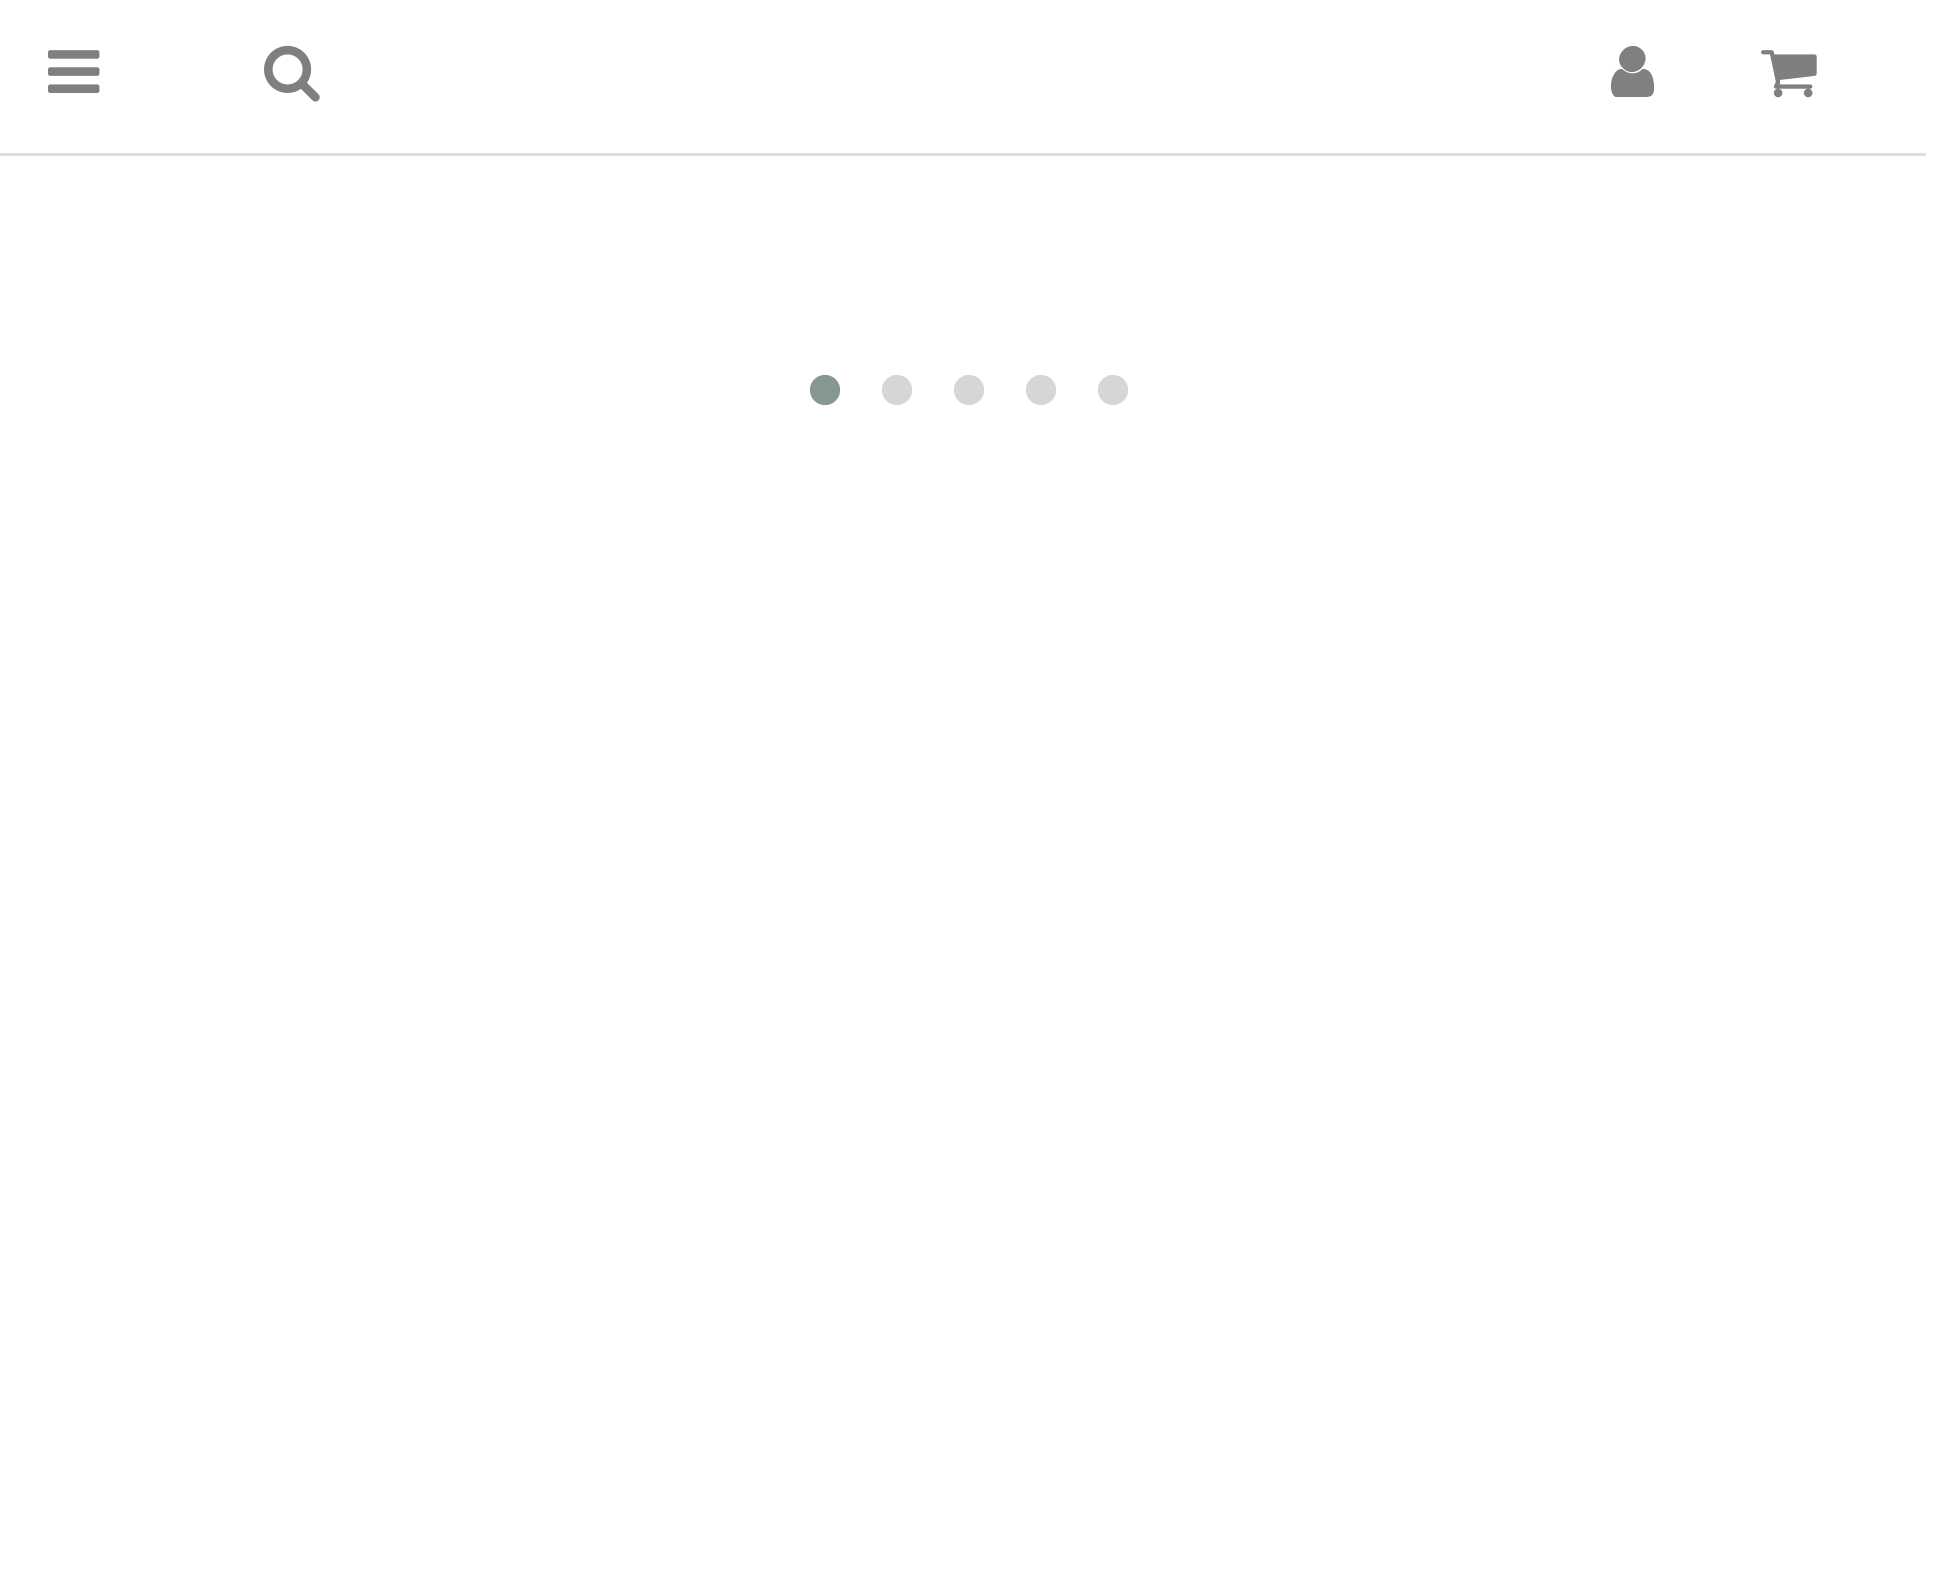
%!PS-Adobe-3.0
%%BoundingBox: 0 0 1938 1594
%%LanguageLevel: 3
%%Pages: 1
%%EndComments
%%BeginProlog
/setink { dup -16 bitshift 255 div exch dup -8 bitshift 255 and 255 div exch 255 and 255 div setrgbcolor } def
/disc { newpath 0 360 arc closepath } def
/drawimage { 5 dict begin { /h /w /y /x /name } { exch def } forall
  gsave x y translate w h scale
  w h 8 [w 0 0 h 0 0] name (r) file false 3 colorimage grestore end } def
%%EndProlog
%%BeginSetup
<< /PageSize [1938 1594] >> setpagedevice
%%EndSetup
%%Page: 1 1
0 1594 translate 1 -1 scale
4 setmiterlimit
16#FFFFFF setink
0 0 1938 1594 rectfill
16#DDDDDD setink
0 153 1926 3 rectfill
(img1.raw) 48 50 52 43 drawimage
(img2.raw) 264 45 56 57 drawimage
16#808080 setink
1654 88 moveto 1654 97 1649 97 1642 97 curveto 1616 97 lineto 1607 93 1611 69 1622 69 curveto 1628 75 1637 75 1643 69 curveto 1652 69 1654 81 1654 88 curveto closepath 1642 50 moveto 1653 62 1635 80 1623 68 curveto 1611 56 1630 38 1642 50 curveto closepath fill
(img3.raw) 1761 50 56 48 drawimage
16#869791 setink
825 390 15 disc fill
16#D6D6D6 setink
897 390 15 disc fill
969 390 15 disc fill
1041 390 15 disc fill
1113 390 15 disc fill
showpage
%%EOF
